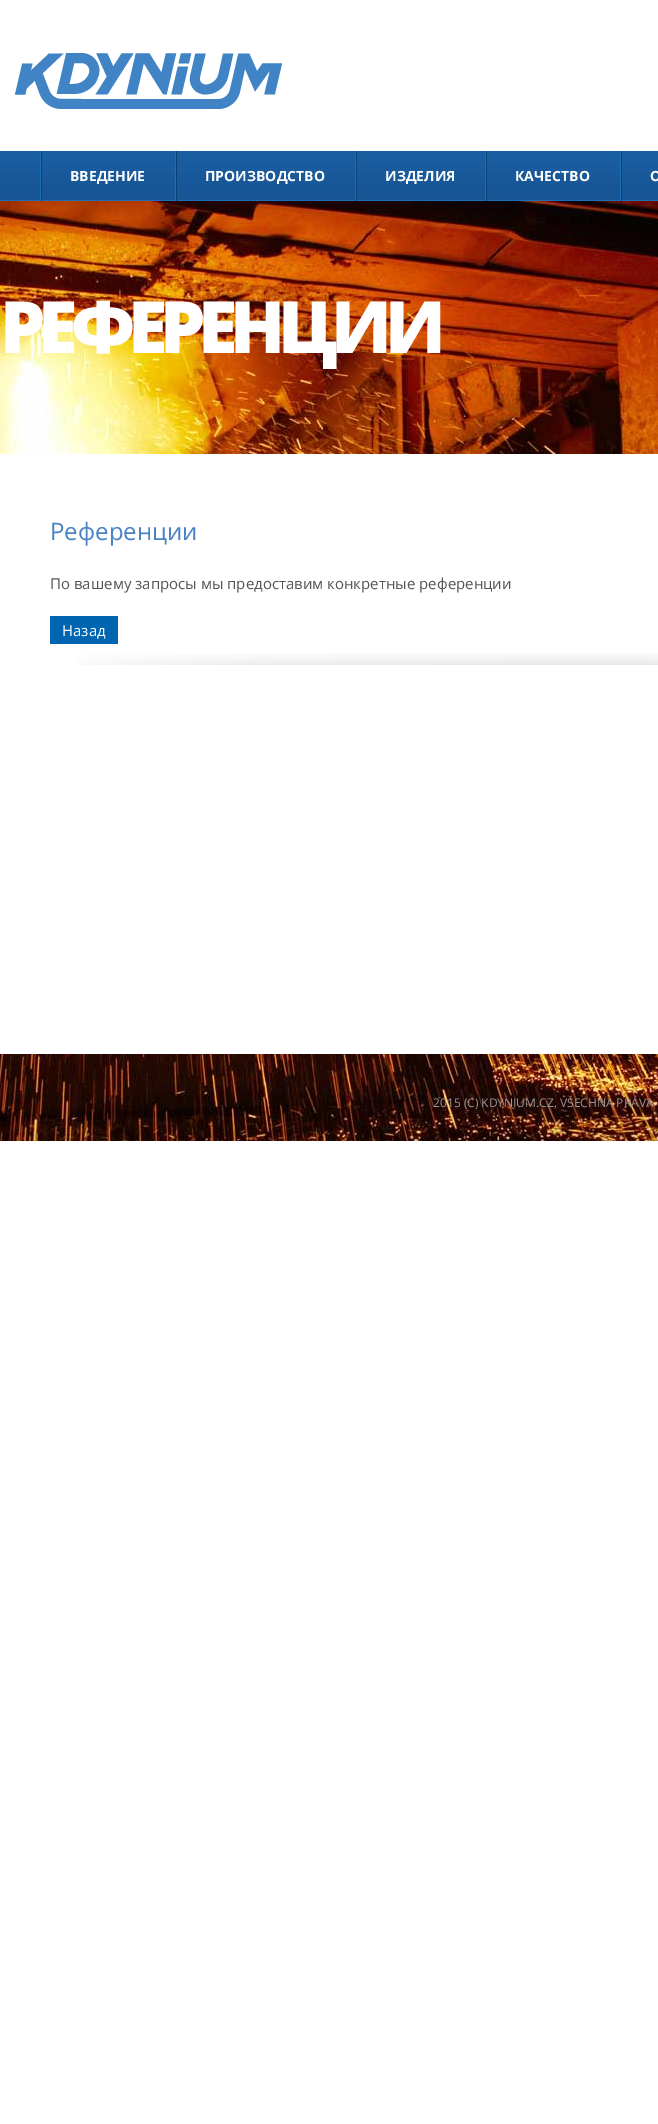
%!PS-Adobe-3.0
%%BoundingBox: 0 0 658 2124
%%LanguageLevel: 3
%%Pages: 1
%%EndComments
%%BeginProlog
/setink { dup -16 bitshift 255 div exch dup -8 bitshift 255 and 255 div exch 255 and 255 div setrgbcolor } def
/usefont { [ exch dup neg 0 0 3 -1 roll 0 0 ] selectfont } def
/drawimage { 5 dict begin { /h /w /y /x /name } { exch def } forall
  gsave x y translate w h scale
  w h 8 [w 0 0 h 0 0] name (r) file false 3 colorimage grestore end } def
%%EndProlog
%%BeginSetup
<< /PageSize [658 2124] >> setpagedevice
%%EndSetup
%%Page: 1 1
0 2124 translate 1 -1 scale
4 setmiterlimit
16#FFFFFF setink
0 0 658 2124 rectfill
(img1.raw) 15 53 267 56 drawimage
(img2.raw) 0 151 658 50 drawimage
(img3.raw) 40 151 2 50 drawimage
/OpenSans-Bold 14 usefont
70 181 moveto (ВВЕДЕНИЕ) show
(img3.raw) 175 151 2 50 drawimage
205 181 moveto (ПРОИЗВОДСТВО) show
(img3.raw) 355 151 2 50 drawimage
385 181 moveto (ИЗДЕЛИЯ) show
(img3.raw) 485 151 2 50 drawimage
515 181 moveto (КАЧЕСТВО) show
(img3.raw) 620 151 2 50 drawimage
650 181 moveto (О) show
(img4.raw) 0 201 658 940 drawimage
/OpenSans-ExtraBold 72 usefont
0 353 moveto -7.25 0 (РЕФЕРЕНЦИИ) ashow
0 454 658 600 rectfill
/OpenSans-Regular 24 usefont
16#4A83C5 setink
50 540 moveto (Референции) show
(img5.raw) 77 653 581 12 drawimage
/OpenSans-Regular 15 usefont
16#555555 setink
50 589 moveto (По вашему запросы мы предоставим конкретные референции) show
16#0065B0 setink
50 616 68 28 rectfill
16#FFFFFF setink
62 636 moveto (Назад) show
/OpenSans-Regular 12 usefont
16#999999 setink
433 1107 moveto (2015 \(C\) KDYNIUM.CZ, VŠECHNA PRÁVA) show
showpage
%%EOF
